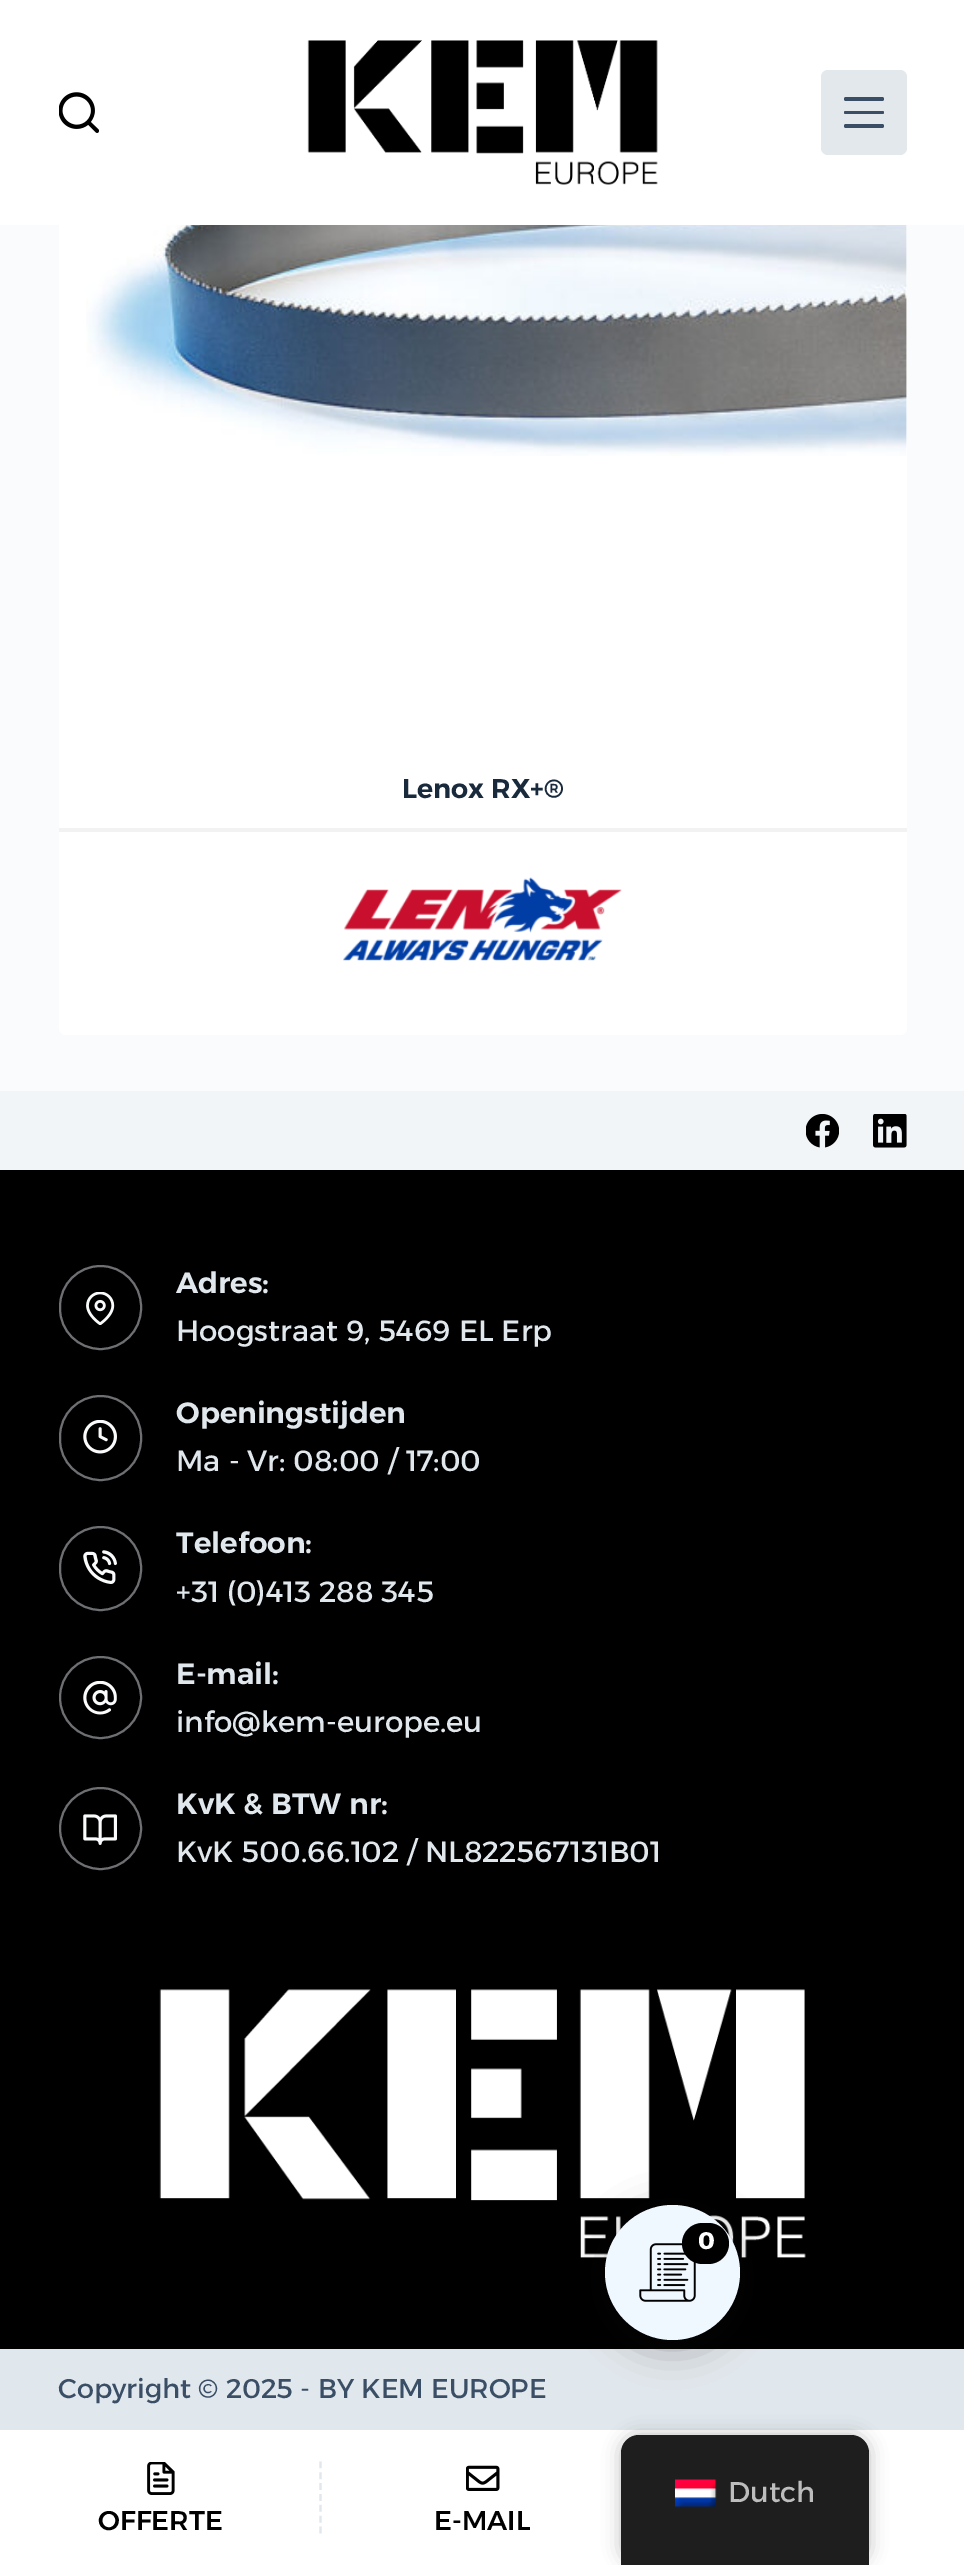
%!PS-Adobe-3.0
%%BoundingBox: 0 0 964 2565
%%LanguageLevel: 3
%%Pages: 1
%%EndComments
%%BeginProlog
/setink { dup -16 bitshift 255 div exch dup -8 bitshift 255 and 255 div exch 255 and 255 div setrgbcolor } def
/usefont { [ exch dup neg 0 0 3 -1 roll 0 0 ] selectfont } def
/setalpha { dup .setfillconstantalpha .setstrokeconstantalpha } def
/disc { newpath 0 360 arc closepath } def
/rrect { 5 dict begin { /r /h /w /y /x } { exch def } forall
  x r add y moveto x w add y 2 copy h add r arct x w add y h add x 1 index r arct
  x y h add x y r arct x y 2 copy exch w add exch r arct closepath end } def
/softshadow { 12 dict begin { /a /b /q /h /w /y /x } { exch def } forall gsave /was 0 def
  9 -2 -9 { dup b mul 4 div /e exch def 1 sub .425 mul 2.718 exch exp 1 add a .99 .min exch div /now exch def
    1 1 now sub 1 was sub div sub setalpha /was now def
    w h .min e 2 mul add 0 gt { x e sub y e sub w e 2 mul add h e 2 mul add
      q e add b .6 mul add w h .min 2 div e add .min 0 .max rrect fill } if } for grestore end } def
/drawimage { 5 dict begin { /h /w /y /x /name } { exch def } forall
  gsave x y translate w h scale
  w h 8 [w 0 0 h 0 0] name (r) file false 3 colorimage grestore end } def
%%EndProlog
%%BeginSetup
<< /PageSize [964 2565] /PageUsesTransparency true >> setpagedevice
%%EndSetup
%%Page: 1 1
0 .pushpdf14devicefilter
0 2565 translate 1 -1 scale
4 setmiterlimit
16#FAFBFC setink
0 0 964 2565 rectfill
16#FFFFFF setink
59 -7 848 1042 7 rrect fill
0 0 964 225 rectfill
(img1.raw) 59 92 40 41 drawimage
(img2.raw) 307 40 351 145 drawimage
16#E3E8ED setink
821 70 86 85 7 rrect fill
16#3A4F66 setink
844 97 40 4 2 rrect fill
844 111 40 3 1.5 rrect fill
844 124 40 4 2 rrect fill
(img3.raw) 86 225 821 231 drawimage
/Alexandria-SemiBold 27 usefont
16#192A3D setink
402 798 moveto (Lenox RX+®) show
16#F2F2F2 setink
59 828 848 4 rectfill
(img4.raw) 343 877 279 84 drawimage
16#F2F5F7 setink
0 1091 964 79 rectfill
(img5.raw) 806 1114 33 34 drawimage
(img6.raw) 873 1114 34 34 drawimage
16#000000 setink
0 1170 964 1179 rectfill
16#6D6F72 setink
2 setlinewidth
60 1266 81 83 40.5 rrect stroke
(img7.raw) 86 1292 29 33 drawimage
/Alexandria-SemiBold 29.25 usefont
16#E1E8ED setink
176 1293 moveto (Adres:) show
/Alexandria-Regular 29.25 usefont
176 1341 moveto (Hoogstraat 9, 5469 EL Erp) show
16#6D6F72 setink
60 1396 81 84 40.5 rrect stroke
(img8.raw) 83 1420 34 34 drawimage
/Alexandria-SemiBold 29.25 usefont
16#E1E8ED setink
176 1423 moveto (Openingstijden) show
/Alexandria-Regular 29.25 usefont
176 1471 moveto (Ma - Vr: 08:00 / 17:00) show
16#6D6F72 setink
60 1527 81 83 40.5 rrect stroke
(img9.raw) 83 1550 34 34 drawimage
/Alexandria-SemiBold 29.25 usefont
16#E1E8ED setink
176 1553 moveto (Telefoon:) show
/Alexandria-Regular 29.25 usefont
176 1602 moveto (+31 \(0\)413 288 345) show
16#6D6F72 setink
100.5 1697.5 40.5 disc stroke
(img10.raw) 83 1681 34 34 drawimage
/Alexandria-SemiBold 29.25 usefont
16#E1E8ED setink
176 1684 moveto (E-mail:) show
/Alexandria-Regular 29.25 usefont
176 1732 moveto (info@kem-europe.eu) show
16#6D6F72 setink
100.5 1828.5 40.5 disc stroke
(img11.raw) 83 1814 34 31 drawimage
/Alexandria-SemiBold 29.25 usefont
16#E1E8ED setink
176 1814 moveto (KvK & BTW nr:) show
/Alexandria-Regular 29.25 usefont
176 1862 moveto (KvK 500.66.102 / NL822567131B01) show
(img12.raw) 159 1989 647 269 drawimage
0 2349 964 81 rectfill
/Alexandria-Regular 27 usefont
16#3A4F66 setink
58 2398 moveto (Copyright © 2025 - BY KEM EUROPE) show
16#101010 setink
605 2212 135 135 67.5 19 0.31 softshadow
16#F0F8FF setink
672.5 2272.5 67.5 disc fill
(img13.raw) 639 2243 57 59 drawimage
16#000000 setink
682 2223 47 41 20.5 rrect fill
/Alexandria-Bold 24 usefont
16#FFFFFF setink
698 2249 moveto (0) show
0 2430 964 135 rectfill
16#000000 setink
621 2435 248 130 18 9 0.25 softshadow
16#1E1E1E setink
639 2435 moveto 851 2435 lineto 861 2435 869 2443 869 2453 curveto 869 2565 lineto 621 2565 lineto 621 2453 lineto 621 2443 629 2435 639 2435 curveto closepath fill
(img14.raw) 675 2479 42 29 drawimage
/Alexandria-Regular 28.5 usefont
16#BDBDBD setink
728 2502 moveto (Dutch) show
(img15.raw) 147 2462 28 33 drawimage
/Alexandria-Medium 27 usefont
16#000000 setink
98 2530 moveto (OFFERTE) show
16#E1E8ED setink
2.2 setlinewidth
[6.75 4.12] 0 setdash
320.5 2461.5 moveto 320.5 2533.5 lineto stroke
(img16.raw) 466 2465 34 26 drawimage
16#000000 setink
434 2530 moveto (E-MAIL) show
.poppdf14devicefilter showpage
%%EOF
